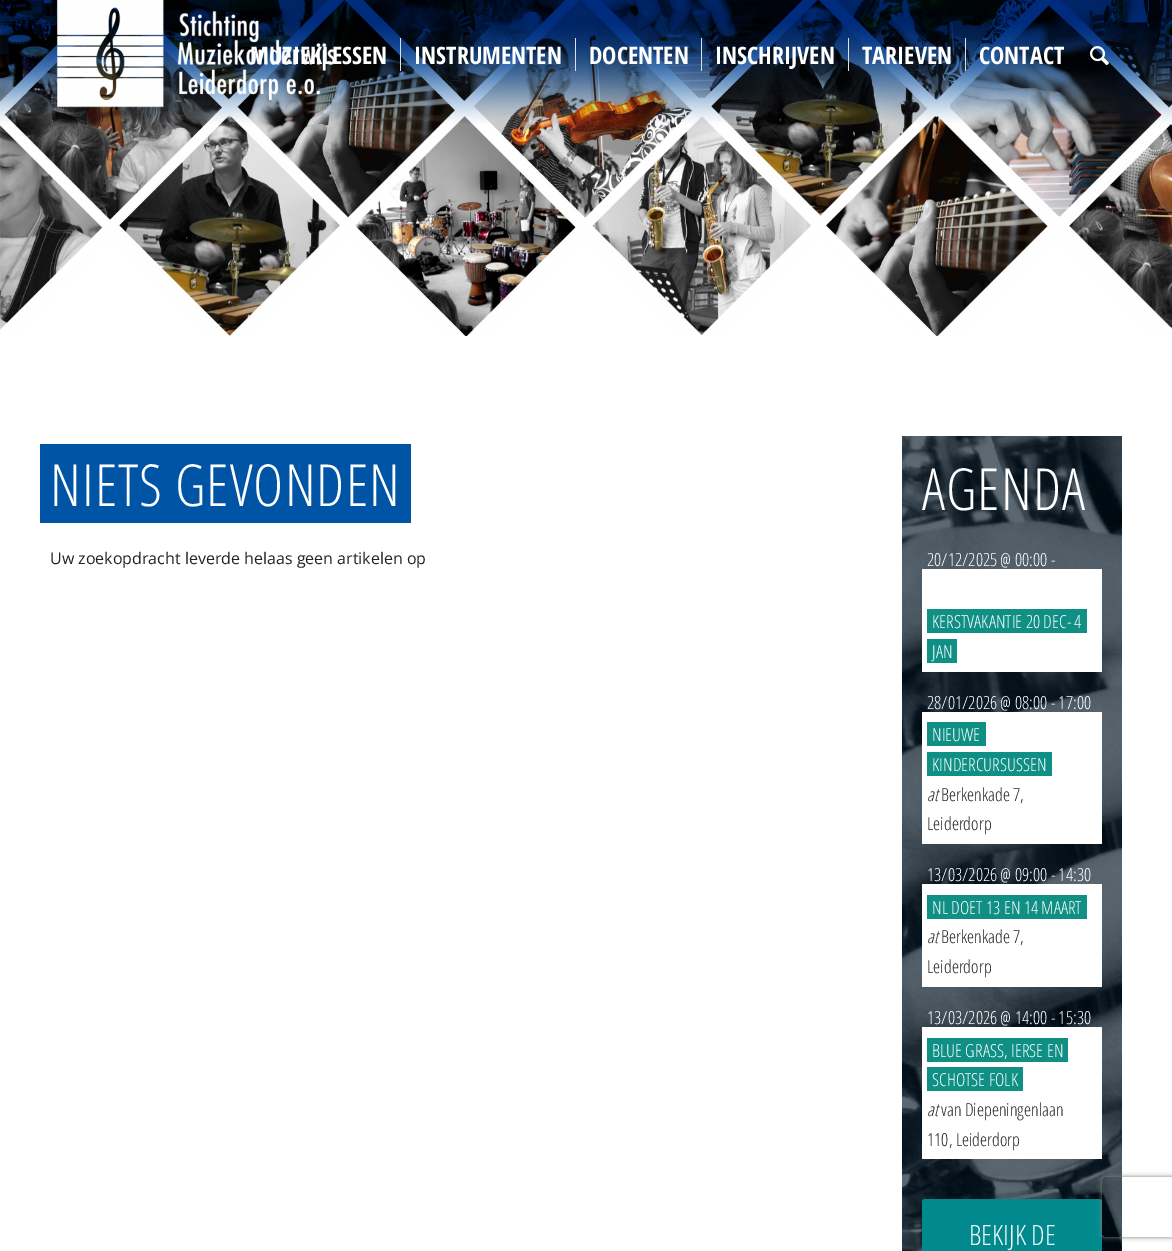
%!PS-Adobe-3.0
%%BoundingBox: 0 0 1172 1251
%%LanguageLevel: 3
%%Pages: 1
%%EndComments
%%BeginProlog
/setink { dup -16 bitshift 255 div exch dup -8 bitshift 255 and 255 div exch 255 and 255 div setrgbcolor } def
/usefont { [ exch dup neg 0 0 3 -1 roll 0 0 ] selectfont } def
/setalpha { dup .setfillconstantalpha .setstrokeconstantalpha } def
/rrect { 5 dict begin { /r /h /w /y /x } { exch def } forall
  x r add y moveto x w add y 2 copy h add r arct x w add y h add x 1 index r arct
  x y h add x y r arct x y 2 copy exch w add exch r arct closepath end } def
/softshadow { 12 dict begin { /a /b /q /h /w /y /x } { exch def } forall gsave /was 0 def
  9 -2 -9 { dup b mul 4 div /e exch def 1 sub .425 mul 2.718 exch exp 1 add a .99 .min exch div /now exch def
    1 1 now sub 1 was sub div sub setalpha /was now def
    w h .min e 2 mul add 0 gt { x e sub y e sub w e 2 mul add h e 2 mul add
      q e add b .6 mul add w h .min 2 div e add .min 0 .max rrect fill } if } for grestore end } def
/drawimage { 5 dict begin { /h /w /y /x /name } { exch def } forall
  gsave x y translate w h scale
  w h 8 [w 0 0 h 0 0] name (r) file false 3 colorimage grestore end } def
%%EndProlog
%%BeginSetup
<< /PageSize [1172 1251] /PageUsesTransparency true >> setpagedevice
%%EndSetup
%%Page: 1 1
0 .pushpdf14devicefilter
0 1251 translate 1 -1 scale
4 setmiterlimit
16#FFFFFF setink
0 0 1172 1251 rectfill
(img3.raw) 0 0 1172 336 drawimage
(img1.raw) 57 0 278 108 drawimage
/OpenSansCondensed-Bold 24 usefont
250 64 moveto (MUZIEKLESSEN) show
414 64 moveto (INSTRUMENTEN) show
16#E1E1E1 setink
400 38 1 33 rectfill
16#FFFFFF setink
589 64 moveto (DOCENTEN) show
16#E1E1E1 setink
575 38 1 33 rectfill
16#FFFFFF setink
715 64 moveto (INSCHRIJVEN) show
16#E1E1E1 setink
701 38 1 33 rectfill
16#FFFFFF setink
862 64 moveto (TARIEVEN) show
16#E1E1E1 setink
848 38 1 33 rectfill
16#FFFFFF setink
979 64 moveto (CONTACT) show
16#E1E1E1 setink
965 38 1 33 rectfill
(img2.raw) 1090 46 19 20 drawimage
16#0054A6 setink
50 444 361 79 rectfill
/OpenSansCondensed-Light 58 usefont
16#FFFFFF setink
50 506 moveto 1 0 (NIETS GEVONDEN) ashow
16#0054A6 setink
40 444 10 79 rectfill
/OpenSans-Regular 16 usefont
16#222222 setink
50 564 moveto (Uw zoekopdracht leverde helaas geen artikelen op) show
(img4.raw) 902 436 220 815 drawimage
/OpenSansCondensed-Light 58 usefont
16#FFFFFF setink
922 510 moveto 1 0 (AGENDA) ashow
922 569 180 103 rectfill
/OpenSansCondensed-Light 18 usefont
927 566 moveto (20/12/2025 @ 00:00 -) show
16#109085 setink
932 609 155 24 rectfill
16#FFFFFF setink
932 628 moveto (KERSTVAKANTIE 20 DEC- 4) show
[
    [927 609 5 24 16#109085]
    [927 639 5 24 16#109085]
    [932 639 25 24 16#109085]
] { aload pop setink rectfill } forall
16#FFFFFF setink
932 658 moveto (JAN) show
922 712 180 132 rectfill
927 709 moveto (28/01/2026 @ 08:00 - 17:00) show
16#109085 setink
932 722 54 24 rectfill
16#FFFFFF setink
932 741 moveto (NIEUWE) show
16#109085 setink
927 722 5 24 rectfill
932 752 120 24 rectfill
16#FFFFFF setink
932 771 moveto (KINDERCURSUSSEN) show
16#109085 setink
927 752 5 24 rectfill
/OpenSansCondensed-LightItalic 18 usefont
16#222222 setink
927 801 moveto (at) show
/OpenSansCondensed-Light 18 usefont
941 801 moveto (Berkenkade 7,) show
927 830 moveto (Leiderdorp) show
16#FFFFFF setink
922 884 180 103 rectfill
927 881 moveto (13/03/2026 @ 09:00 - 14:30) show
16#109085 setink
932 895 155 24 rectfill
16#FFFFFF setink
932 914 moveto (NL DOET 13 EN 14 MAART) show
16#109085 setink
927 895 5 24 rectfill
/OpenSansCondensed-LightItalic 18 usefont
16#222222 setink
927 943 moveto (at) show
/OpenSansCondensed-Light 18 usefont
941 943 moveto (Berkenkade 7,) show
927 973 moveto (Leiderdorp) show
16#FFFFFF setink
922 1027 180 132 rectfill
927 1024 moveto (13/03/2026 @ 14:00 - 15:30) show
16#109085 setink
932 1038 136 24 rectfill
16#FFFFFF setink
932 1057 moveto (BLUE GRASS, IERSE EN) show
16#109085 setink
927 1038 5 24 rectfill
932 1067 91 24 rectfill
16#FFFFFF setink
932 1086 moveto (SCHOTSE FOLK) show
16#109085 setink
927 1067 5 24 rectfill
/OpenSansCondensed-LightItalic 18 usefont
16#222222 setink
927 1116 moveto (at) show
/OpenSansCondensed-Light 18 usefont
941 1116 moveto (van Diepeningenlaan) show
927 1146 moveto (110, Leiderdorp) show
16#008A8E setink
922 1199 180 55 3 rrect fill
/OpenSansCondensed-Light 28 usefont
16#FFFFFF setink
969 1245 moveto (BEKIJK DE) show
gsave
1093 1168 moveto 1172 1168 lineto 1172 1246 lineto 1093 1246 lineto closepath 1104 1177 moveto 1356 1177 lineto 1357 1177 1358 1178 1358 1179 curveto 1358 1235 lineto 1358 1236 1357 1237 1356 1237 curveto 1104 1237 lineto 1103 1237 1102 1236 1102 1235 curveto 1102 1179 lineto 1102 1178 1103 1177 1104 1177 curveto closepath eoclip newpath
16#808080 setink
1102 1177 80 60 2 2.5 1 softshadow
grestore
.poppdf14devicefilter showpage
%%EOF
